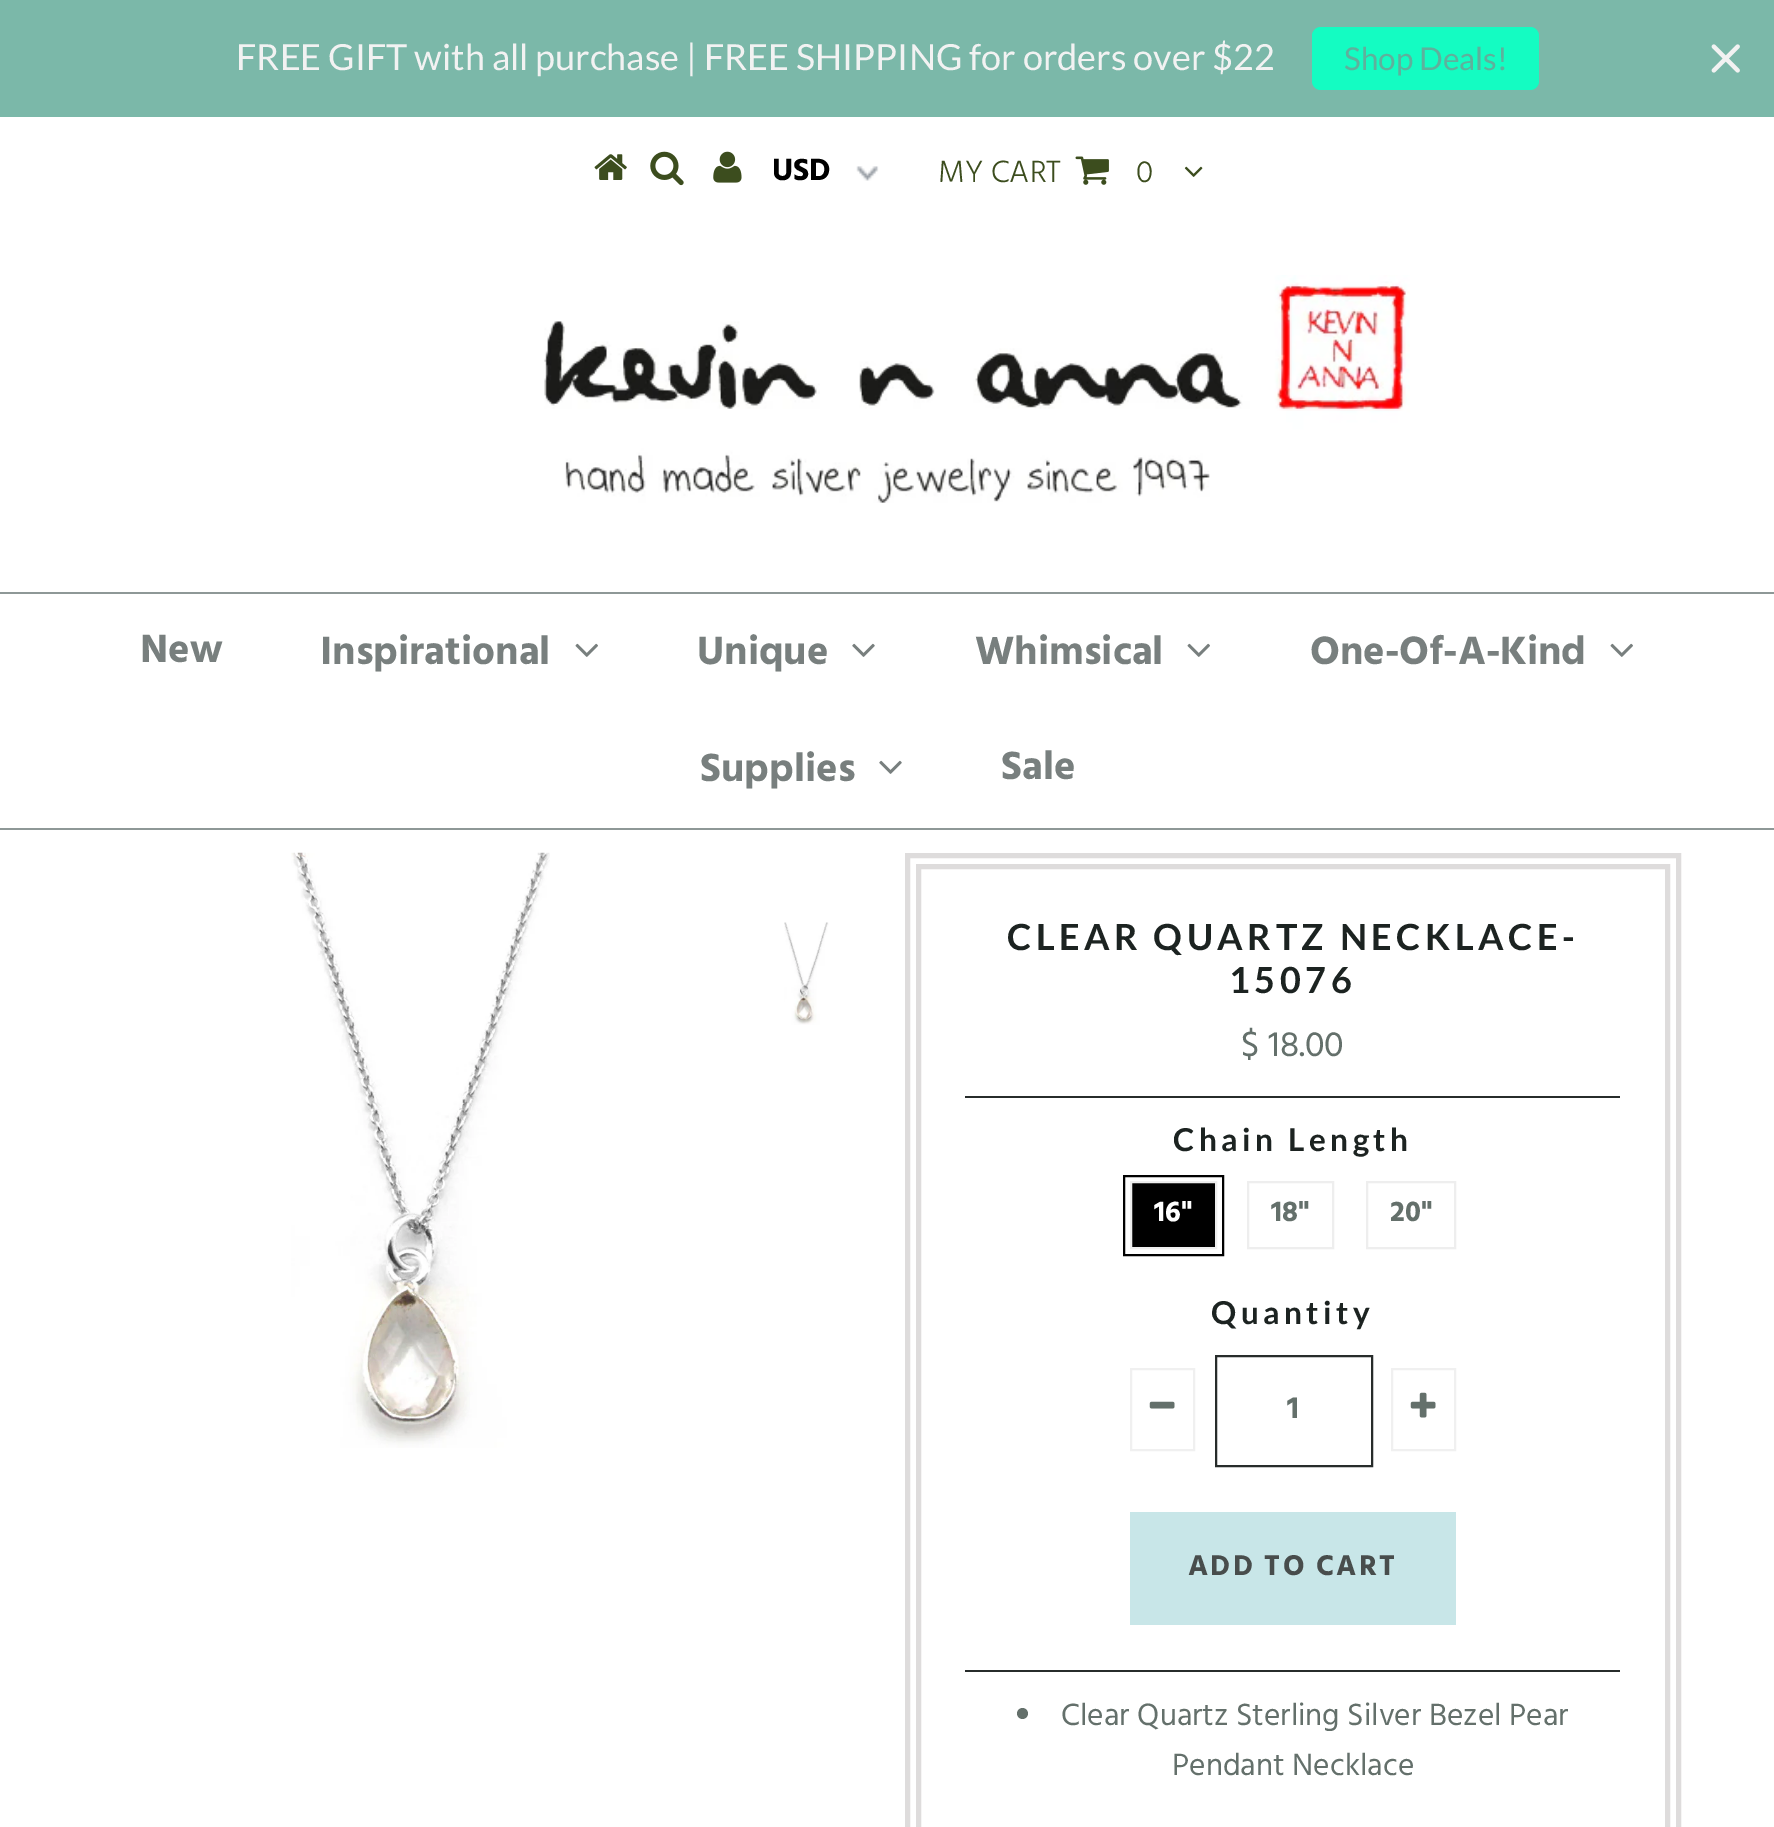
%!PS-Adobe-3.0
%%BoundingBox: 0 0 1774 1827
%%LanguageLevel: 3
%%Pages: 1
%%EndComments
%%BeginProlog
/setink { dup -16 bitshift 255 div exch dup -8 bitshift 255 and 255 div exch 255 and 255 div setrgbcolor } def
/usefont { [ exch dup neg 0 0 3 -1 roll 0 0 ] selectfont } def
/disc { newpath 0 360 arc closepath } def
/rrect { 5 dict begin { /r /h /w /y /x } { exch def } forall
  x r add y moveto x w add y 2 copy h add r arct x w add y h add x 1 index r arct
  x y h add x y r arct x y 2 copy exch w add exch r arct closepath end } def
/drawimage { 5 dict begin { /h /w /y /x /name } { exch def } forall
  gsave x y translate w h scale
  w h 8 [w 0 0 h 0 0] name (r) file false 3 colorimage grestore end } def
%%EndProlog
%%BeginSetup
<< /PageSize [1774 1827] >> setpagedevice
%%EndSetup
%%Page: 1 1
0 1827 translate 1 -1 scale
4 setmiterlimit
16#FFFFFF setink
0 0 1774 1827 rectfill
16#7BB8A9 setink
0 0 1774 117 rectfill
/Lato-Regular 36 usefont
16#F2F2F2 setink
236 70 moveto (FREE GIFT with all purchase | FREE SHIPPING for orders over $22) show
16#14FCC2 setink
1312 27 227 63 9 rrect fill
/Lato-Regular 31.5 usefont
16#5FB09C setink
1344 70 moveto (Shop Deals!) show
(img1.raw) 1711 44 29 29 drawimage
(img2.raw) 594 154 33 26 drawimage
(img3.raw) 650 151 34 35 drawimage
(img4.raw) 713 151 29 32 drawimage
(img5.raw) 856 166 23 15 drawimage
/Hind-Bold 31.5 usefont
16#000000 setink
772 180 moveto (USD) show
/Hind-Light 31.5 usefont
16#3C4D1E setink
938 182 moveto (MY CART) show
(img6.raw) 1075 156 34 29 drawimage
1136 182 moveto (0) show
(img7.raw) 1184 166 19 11 drawimage
(img8.raw) 544 275 866 228 drawimage
16#8E9897 setink
0 592 1774 2 rectfill
0 828 1774 2 rectfill
/Hind-Bold 40.5 usefont
16#787F7E setink
140 662 moveto (New) show
320 664 moveto (Inspirational) show
(img9.raw) 575 643 23 14 drawimage
697 664 moveto (Unique) show
(img10.raw) 852 643 23 14 drawimage
975 664 moveto (Whimsical) show
(img9.raw) 1187 643 23 14 drawimage
1310 664 moveto (One-Of-A-Kind) show
(img9.raw) 1610 643 23 14 drawimage
700 781 moveto (Supplies) show
(img10.raw) 879 760 23 14 drawimage
1001 779 moveto (Sale) show
(img11.raw) 291 852 259 596 drawimage
(img12.raw) 784 922 45 103 drawimage
16#DEDCDC setink
5 setlinewidth
907.5 855.5 771 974 rectstroke
918.5 866.5 749 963 rectstroke
/Lato-Bold 36 usefont
16#1C2321 setink
1007 950 moveto 4.5 0 (CLEAR QUARTZ NECKLACE-) ashow
1229 993 moveto 4.5 0 (15076) ashow
/Hind-Regular 36 usefont
16#64706B setink
1241 1056 moveto ($ 18.00) show
16#272C2B setink
965 1096 655 2 rectfill
965 1670 655 2 rectfill
/Lato-Bold 31.5 usefont
16#1C2321 setink
1173 1151 moveto 4.5 0 (Chain Length) ashow
16#000000 setink
1131 1182 moveto 1216 1182 lineto 1216 1248 lineto 1131 1248 lineto closepath gsave fill grestore
16#EEEEEE setink
2 setlinewidth
stroke
16#000000 setink
1124 1176 99 79 rectstroke
/Hind-Bold 29.25 usefont
16#FFFFFF setink
1154 1221 moveto (16") show
16#EEEEEE setink
1248 1182 85 66 rectstroke
16#64706B setink
1271 1221 moveto (18") show
16#EEEEEE setink
1367 1182 88 66 rectstroke
16#64706B setink
1390 1221 moveto (20") show
/Lato-Bold 31.5 usefont
16#1C2321 setink
1211 1324 moveto 4.5 0 (Quantity) ashow
16#F0F0F0 setink
1131 1369 63 81 rectstroke
(img13.raw) 1149 1401 26 8 drawimage
16#272C2B setink
1216 1356 156 110 rectstroke
/Hind-Bold 31.5 usefont
16#64706B setink
1287 1418 moveto (1) show
16#F0F0F0 setink
1392 1369 63 81 rectstroke
(img14.raw) 1410 1392 26 26 drawimage
16#C8E6E8 setink
1130 1512 326 113 rectfill
/Hind-Bold 29.25 usefont
16#484D4C setink
1188 1575 moveto 2.25 0 (ADD TO CART) ashow
16#64706B setink
1022.5 1713.5 5.5 disc fill
/Hind-Regular 31.5 usefont
1061 1725 moveto (Clear Quartz Sterling Silver Bezel Pear) show
1172 1775 moveto (Pendant Necklace) show
showpage
%%EOF
